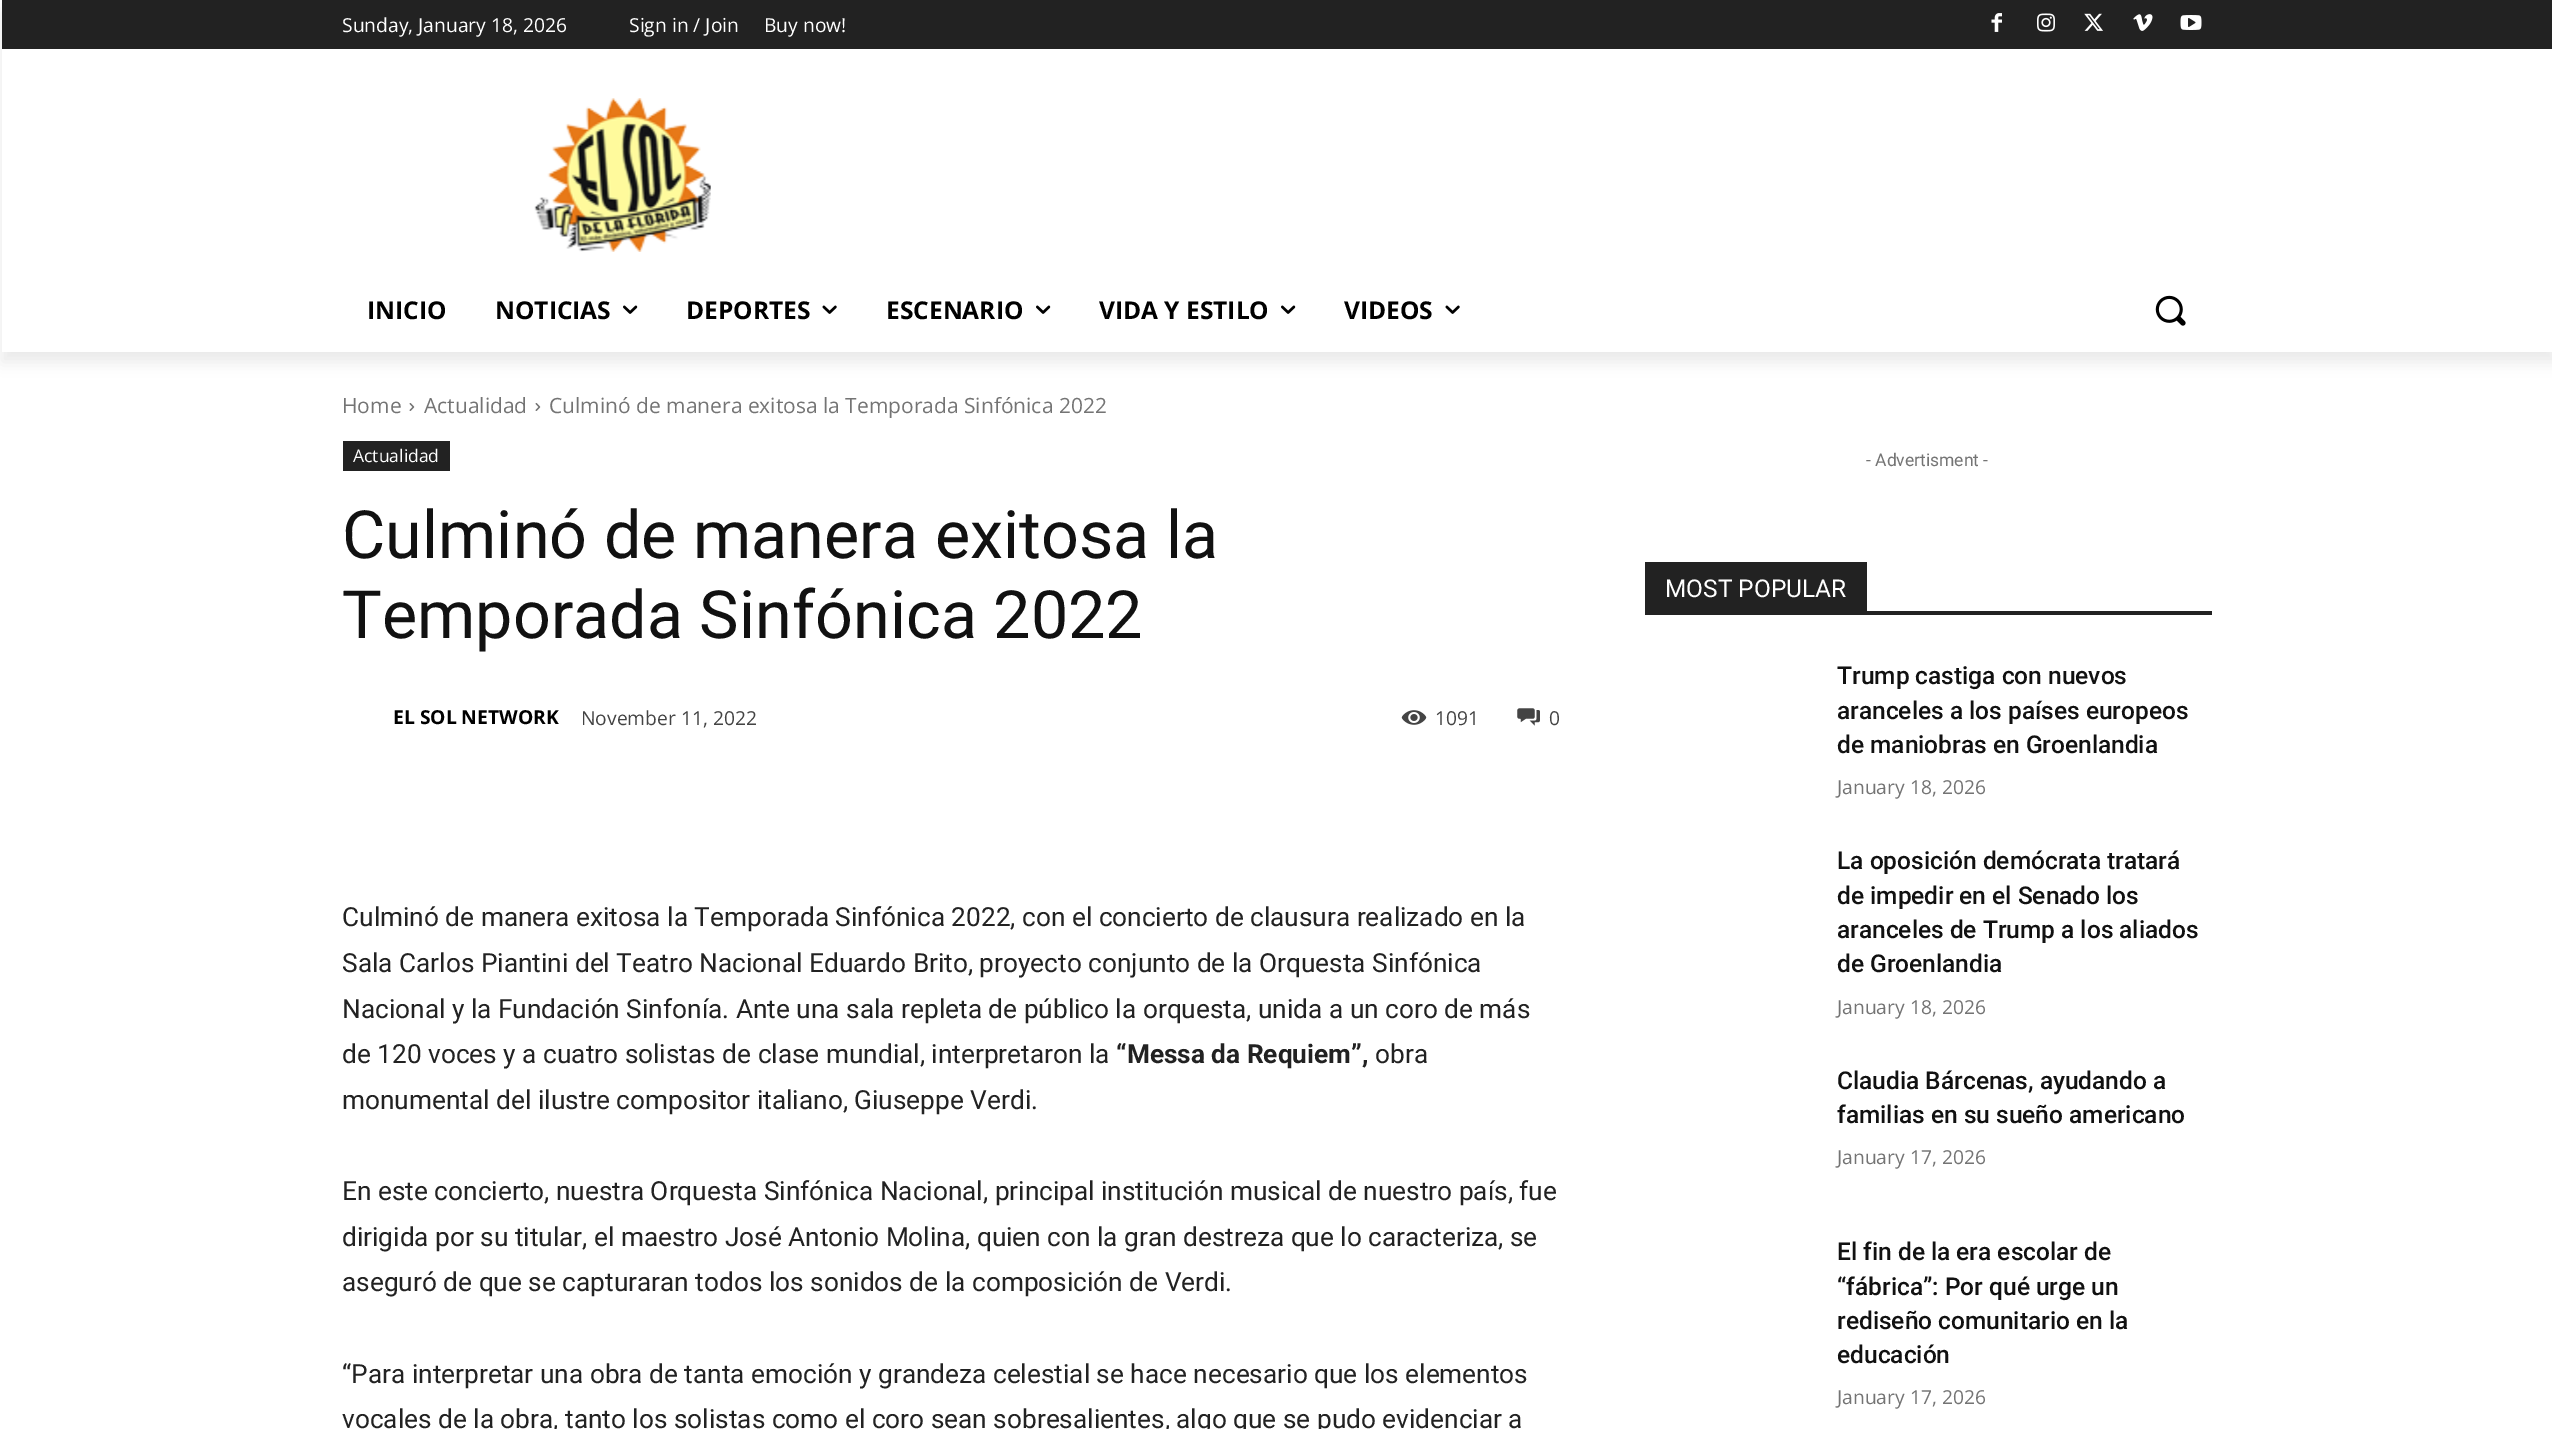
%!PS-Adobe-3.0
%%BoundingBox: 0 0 2552 1429
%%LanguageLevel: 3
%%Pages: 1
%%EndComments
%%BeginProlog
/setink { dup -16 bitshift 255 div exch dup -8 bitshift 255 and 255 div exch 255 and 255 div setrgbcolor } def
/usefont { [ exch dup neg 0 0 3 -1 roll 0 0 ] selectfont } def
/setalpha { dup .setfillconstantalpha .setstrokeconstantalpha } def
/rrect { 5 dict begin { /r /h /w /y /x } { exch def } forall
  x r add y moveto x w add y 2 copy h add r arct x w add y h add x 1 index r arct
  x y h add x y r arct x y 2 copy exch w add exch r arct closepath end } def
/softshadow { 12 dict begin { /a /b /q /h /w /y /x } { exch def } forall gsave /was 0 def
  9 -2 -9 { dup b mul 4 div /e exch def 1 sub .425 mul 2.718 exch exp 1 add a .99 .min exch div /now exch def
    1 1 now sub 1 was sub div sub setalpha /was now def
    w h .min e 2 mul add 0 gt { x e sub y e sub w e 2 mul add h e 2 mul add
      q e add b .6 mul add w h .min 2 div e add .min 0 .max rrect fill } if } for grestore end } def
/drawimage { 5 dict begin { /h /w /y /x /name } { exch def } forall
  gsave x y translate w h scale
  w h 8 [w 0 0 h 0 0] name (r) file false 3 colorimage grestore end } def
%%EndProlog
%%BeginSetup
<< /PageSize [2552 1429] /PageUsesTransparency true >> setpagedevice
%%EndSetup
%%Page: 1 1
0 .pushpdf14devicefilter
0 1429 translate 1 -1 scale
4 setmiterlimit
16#FFFFFF setink
0 0 2552 1429 rectfill
16#222222 setink
2 0 2550 49 rectfill
(img1.raw) 1991 13 11 19 drawimage
(img2.raw) 2037 13 18 19 drawimage
(img3.raw) 2084 13 19 18 drawimage
(img4.raw) 2133 14 20 17 drawimage
(img5.raw) 2180 15 22 15 drawimage
(img6.raw) 534 98 177 154 drawimage
gsave
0 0 moveto 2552 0 lineto 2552 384 lineto 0 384 lineto closepath 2 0 moveto 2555 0 lineto 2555 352 lineto 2 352 lineto closepath eoclip newpath
16#000000 setink
2 11 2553 351 0 7 0.08 softshadow
grestore
/OpenSans-Regular 19.25 usefont
16#FFFFFF setink
[
    [(Sunday, January 18, 2026) 342 32]
    [(Sign in / Join) 629 32]
    [(Buy now!) 764 32]
] { aload pop moveto show } forall
/OpenSans-Bold 24.5 usefont
16#000000 setink
367 319 moveto (INICIO) show
495 319 moveto (NOTICIAS) show
(img7.raw) 623 305 15 9 drawimage
686 319 moveto (DEPORTES) show
(img8.raw) 822 305 15 9 drawimage
886 319 moveto (ESCENARIO) show
(img7.raw) 1036 305 15 9 drawimage
1099 319 moveto (VIDA Y ESTILO) show
(img7.raw) 1281 305 15 9 drawimage
1344 319 moveto (VIDEOS) show
(img8.raw) 1445 305 15 9 drawimage
(img9.raw) 2155 295 31 31 drawimage
/OpenSans-Regular 21 usefont
16#747474 setink
342 413 moveto (Home) show
(img10.raw) 409 403 6 8 drawimage
424 413 moveto (Actualidad) show
(img10.raw) 535 403 6 8 drawimage
549 413 moveto (Culminó de manera exitosa la Temporada Sinfónica 2022) show
16#222222 setink
343 441 107 30 rectfill
/OpenSans-Regular 17.5 usefont
16#FFFFFF setink
353 462 moveto (Actualidad) show
/Roboto-Regular 66.5 usefont
16#111111 setink
342 558 moveto (Culminó de manera exitosa la) show
342 638 moveto (Temporada Sinfónica 2022) show
/OpenSans-Bold 19.25 usefont
16#000000 setink
393 724 moveto (EL SOL NETWORK) show
/OpenSans-Regular 19.25 usefont
16#444444 setink
581 725 moveto (November 11, 2022) show
(img11.raw) 1401 710 26 15 drawimage
1435 725 moveto (1091) show
(img12.raw) 1517 708 23 18 drawimage
1549 725 moveto (0) show
/Roboto-Regular 26.25 usefont
16#222222 setink
[
    [(Culminó de manera exitosa la Temporada Sinfónica 2022, con el concierto de clausura realizado en la) 342 926]
    [(Sala Carlos Piantini del Teatro Nacional Eduardo Brito, proyecto conjunto de la Orquesta Sinfónica) 342 972]
    [(Nacional y la Fundación Sinfonía. Ante una sala repleta de público la orquesta, unida a un coro de más) 342 1018]
    [(de 120 voces y a cuatro solistas de clase mundial, interpretaron la) 342 1063]
] { aload pop moveto show } forall
/Roboto-Bold 26.25 usefont
1116 1063 moveto (“Messa da Requiem”,) show
/Roboto-Regular 26.25 usefont
[
    [(obra) 1375 1063]
    [(monumental del ilustre compositor italiano, Giuseppe Verdi.) 342 1109]
    [(En este concierto, nuestra Orquesta Sinfónica Nacional, principal institución musical de nuestro país, fue) 342 1200]
    [(dirigida por su titular, el maestro José Antonio Molina, quien con la gran destreza que lo caracteriza, se) 342 1246]
    [(aseguró de que se capturaran todos los sonidos de la composición de Verdi.) 342 1291]
    [(“Para interpretar una obra de tanta emoción y grandeza celestial se hace necesario que los elementos) 342 1383]
    [(vocales de la obra, tanto los solistas como el coro sean sobresalientes, algo que se pudo evidenciar a) 342 1428]
] { aload pop moveto show } forall
/Roboto-Regular 17.5 usefont
16#747474 setink
1866 466 moveto (- Advertisment -) show
16#222222 setink
1645 611 567 4 rectfill
1645 562 222 49 rectfill
/Roboto-Regular 24.5 usefont
16#FFFFFF setink
1665 597 moveto (MOST POPULAR) show
/Roboto-Medium 24.5 usefont
16#111111 setink
[
    [(Trump castiga con nuevos) 1837 684]
    [(aranceles a los países europeos) 1837 719]
    [(de maniobras en Groenlandia) 1837 753]
] { aload pop moveto show } forall
/OpenSans-Regular 19.25 usefont
16#747474 setink
1837 794 moveto (January 18, 2026) show
/Roboto-Medium 24.5 usefont
16#111111 setink
[
    [(La oposición demócrata tratará) 1837 869]
    [(de impedir en el Senado los) 1837 904]
    [(aranceles de Trump a los aliados) 1837 938]
    [(de Groenlandia) 1837 972]
] { aload pop moveto show } forall
/OpenSans-Regular 19.25 usefont
16#747474 setink
1837 1014 moveto (January 18, 2026) show
/Roboto-Medium 24.5 usefont
16#111111 setink
1837 1089 moveto (Claudia Bárcenas, ayudando a) show
1837 1123 moveto (familias en su sueño americano) show
/OpenSans-Regular 19.25 usefont
16#747474 setink
1837 1164 moveto (January 17, 2026) show
/Roboto-Medium 24.5 usefont
16#111111 setink
[
    [(El fin de la era escolar de) 1837 1260]
    [(“fábrica”: Por qué urge un) 1837 1295]
    [(rediseño comunitario en la) 1837 1329]
    [(educación) 1837 1363]
] { aload pop moveto show } forall
/OpenSans-Regular 19.25 usefont
16#747474 setink
1837 1404 moveto (January 17, 2026) show
.poppdf14devicefilter showpage
%%EOF
